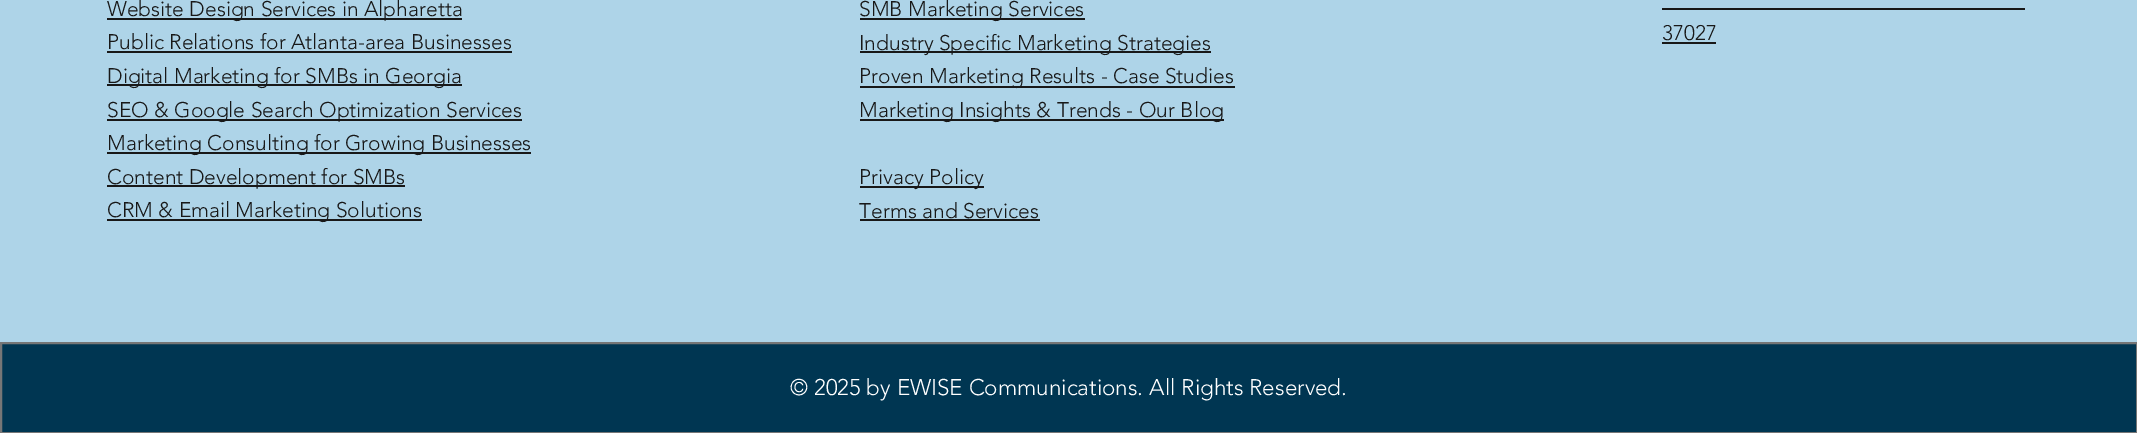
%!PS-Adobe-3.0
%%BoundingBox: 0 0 2137 433
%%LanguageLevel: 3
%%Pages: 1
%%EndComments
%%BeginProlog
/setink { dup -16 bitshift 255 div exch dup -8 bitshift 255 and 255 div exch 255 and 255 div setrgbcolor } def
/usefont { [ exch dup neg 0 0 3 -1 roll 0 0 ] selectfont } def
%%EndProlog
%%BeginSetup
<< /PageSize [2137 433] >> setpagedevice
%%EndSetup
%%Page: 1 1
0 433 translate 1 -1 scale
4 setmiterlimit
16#AED4E8 setink
0 0 2137 433 rectfill
16#181818 setink
107 18 355 2 rectfill
/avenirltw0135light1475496-Light 21 usefont
107 16 moveto (Website Design Services in Alpharetta) show
107 49 moveto (Public Relations for Atlanta-area Businesses) show
107 51 405 2 rectfill
107 84 355 2 rectfill
107 83 moveto (Digital Marketing for SMBs in Georgia) show
107 119 415 2 rectfill
107 117 moveto (SEO & Google Search Optimization Services) show
107 152 424 2 rectfill
107 150 moveto (Marketing Consulting for Growing Businesses) show
107 185 298 2 rectfill
107 184 moveto (Content Development for SMBs) show
107 219 315 2 rectfill
107 217 moveto (CRM & Email Marketing Solutions) show
860 18 225 2 rectfill
859 16 moveto (SMB Marketing Services) show
860 51 351 2 rectfill
859 50 moveto (Industry Specific Marketing Strategies) show
860 86 375 2 rectfill
859 83 moveto (Proven Marketing Results - Case Studies) show
860 119 364 2 rectfill
859 117 moveto (Marketing Insights & Trends - Our Blog) show
860 186 124 2 rectfill
859 184 moveto (Privacy Policy) show
859 218 moveto (Terms and Services) show
860 219 180 2 rectfill
1662 40 moveto (37027) show
1662 8 363 2 rectfill
1662 42 54 2 rectfill
16#003652 setink
1 343 moveto 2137 343 lineto 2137 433 lineto 1 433 lineto closepath gsave fill grestore
16#767676 setink
2 setlinewidth
stroke
/avenirltw0135light1475496-Light 22.5 usefont
16#FFFFFF setink
790 395 moveto (© 2025 by EWISE Communications. All Rights Reserved.) show
showpage
%%EOF
